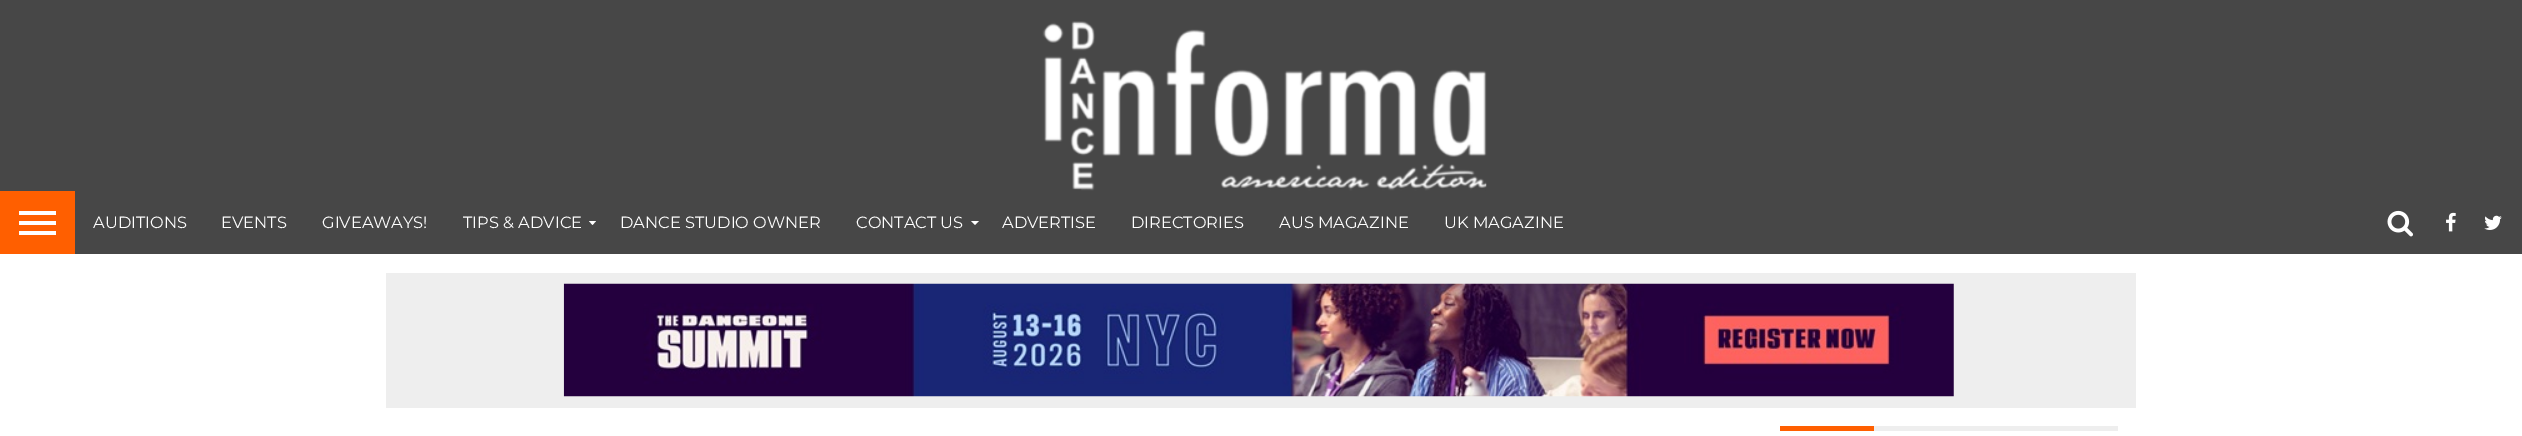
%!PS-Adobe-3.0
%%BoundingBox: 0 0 2522 436
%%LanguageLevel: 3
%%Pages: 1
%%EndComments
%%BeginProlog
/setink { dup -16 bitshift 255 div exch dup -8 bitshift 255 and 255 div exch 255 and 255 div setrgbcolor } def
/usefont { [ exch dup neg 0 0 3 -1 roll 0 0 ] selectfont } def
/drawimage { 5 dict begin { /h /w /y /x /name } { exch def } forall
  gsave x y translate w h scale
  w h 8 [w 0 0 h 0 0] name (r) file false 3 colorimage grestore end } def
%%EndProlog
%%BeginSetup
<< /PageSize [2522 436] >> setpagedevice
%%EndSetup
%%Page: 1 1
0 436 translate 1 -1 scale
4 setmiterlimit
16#FFFFFF setink
0 0 2522 436 rectfill
16#474747 setink
0 0 2522 191 rectfill
(img1.raw) 1042 21 445 170 drawimage
[
    [75 191 2447 63 16#474747]
    [0 191 75 63 16#FF5F00]
    [19 211 37 4 16#FFFFFF]
    [19 221 37 4 16#FFFFFF]
    [19 231 37 4 16#FFFFFF]
] { aload pop setink rectfill } forall
/Montserrat-Regular 16.25 usefont
[
    [(AUDITIONS) 93 228]
    [(EVENTS) 221 228]
    [(GIVEAWAYS!) 322 228]
    [(TIPS & ADVICE) 463 228]
] { aload pop moveto show } forall
589 221 moveto 596 221 lineto 592.5 225 lineto closepath fill
620 228 moveto (DANCE STUDIO OWNER) show
856 228 moveto (CONTACT US) show
971 221 moveto 979 221 lineto 975 225 lineto closepath fill
[
    [(ADVERTISE) 1002 228]
    [(DIRECTORIES) 1131 228]
    [(AUS MAGAZINE) 1279 228]
    [(UK MAGAZINE) 1444 228]
] { aload pop moveto show } forall
(img2.raw) 2387 210 26 27 drawimage
(img3.raw) 2446 212 10 20 drawimage
(img4.raw) 2484 215 18 15 drawimage
16#EEEEEE setink
386 273 1750 135 rectfill
(img5.raw) 563 283 1391 114 drawimage
1874 426 244 5 rectfill
16#FF5F00 setink
1780 426 94 5 rectfill
showpage
%%EOF
